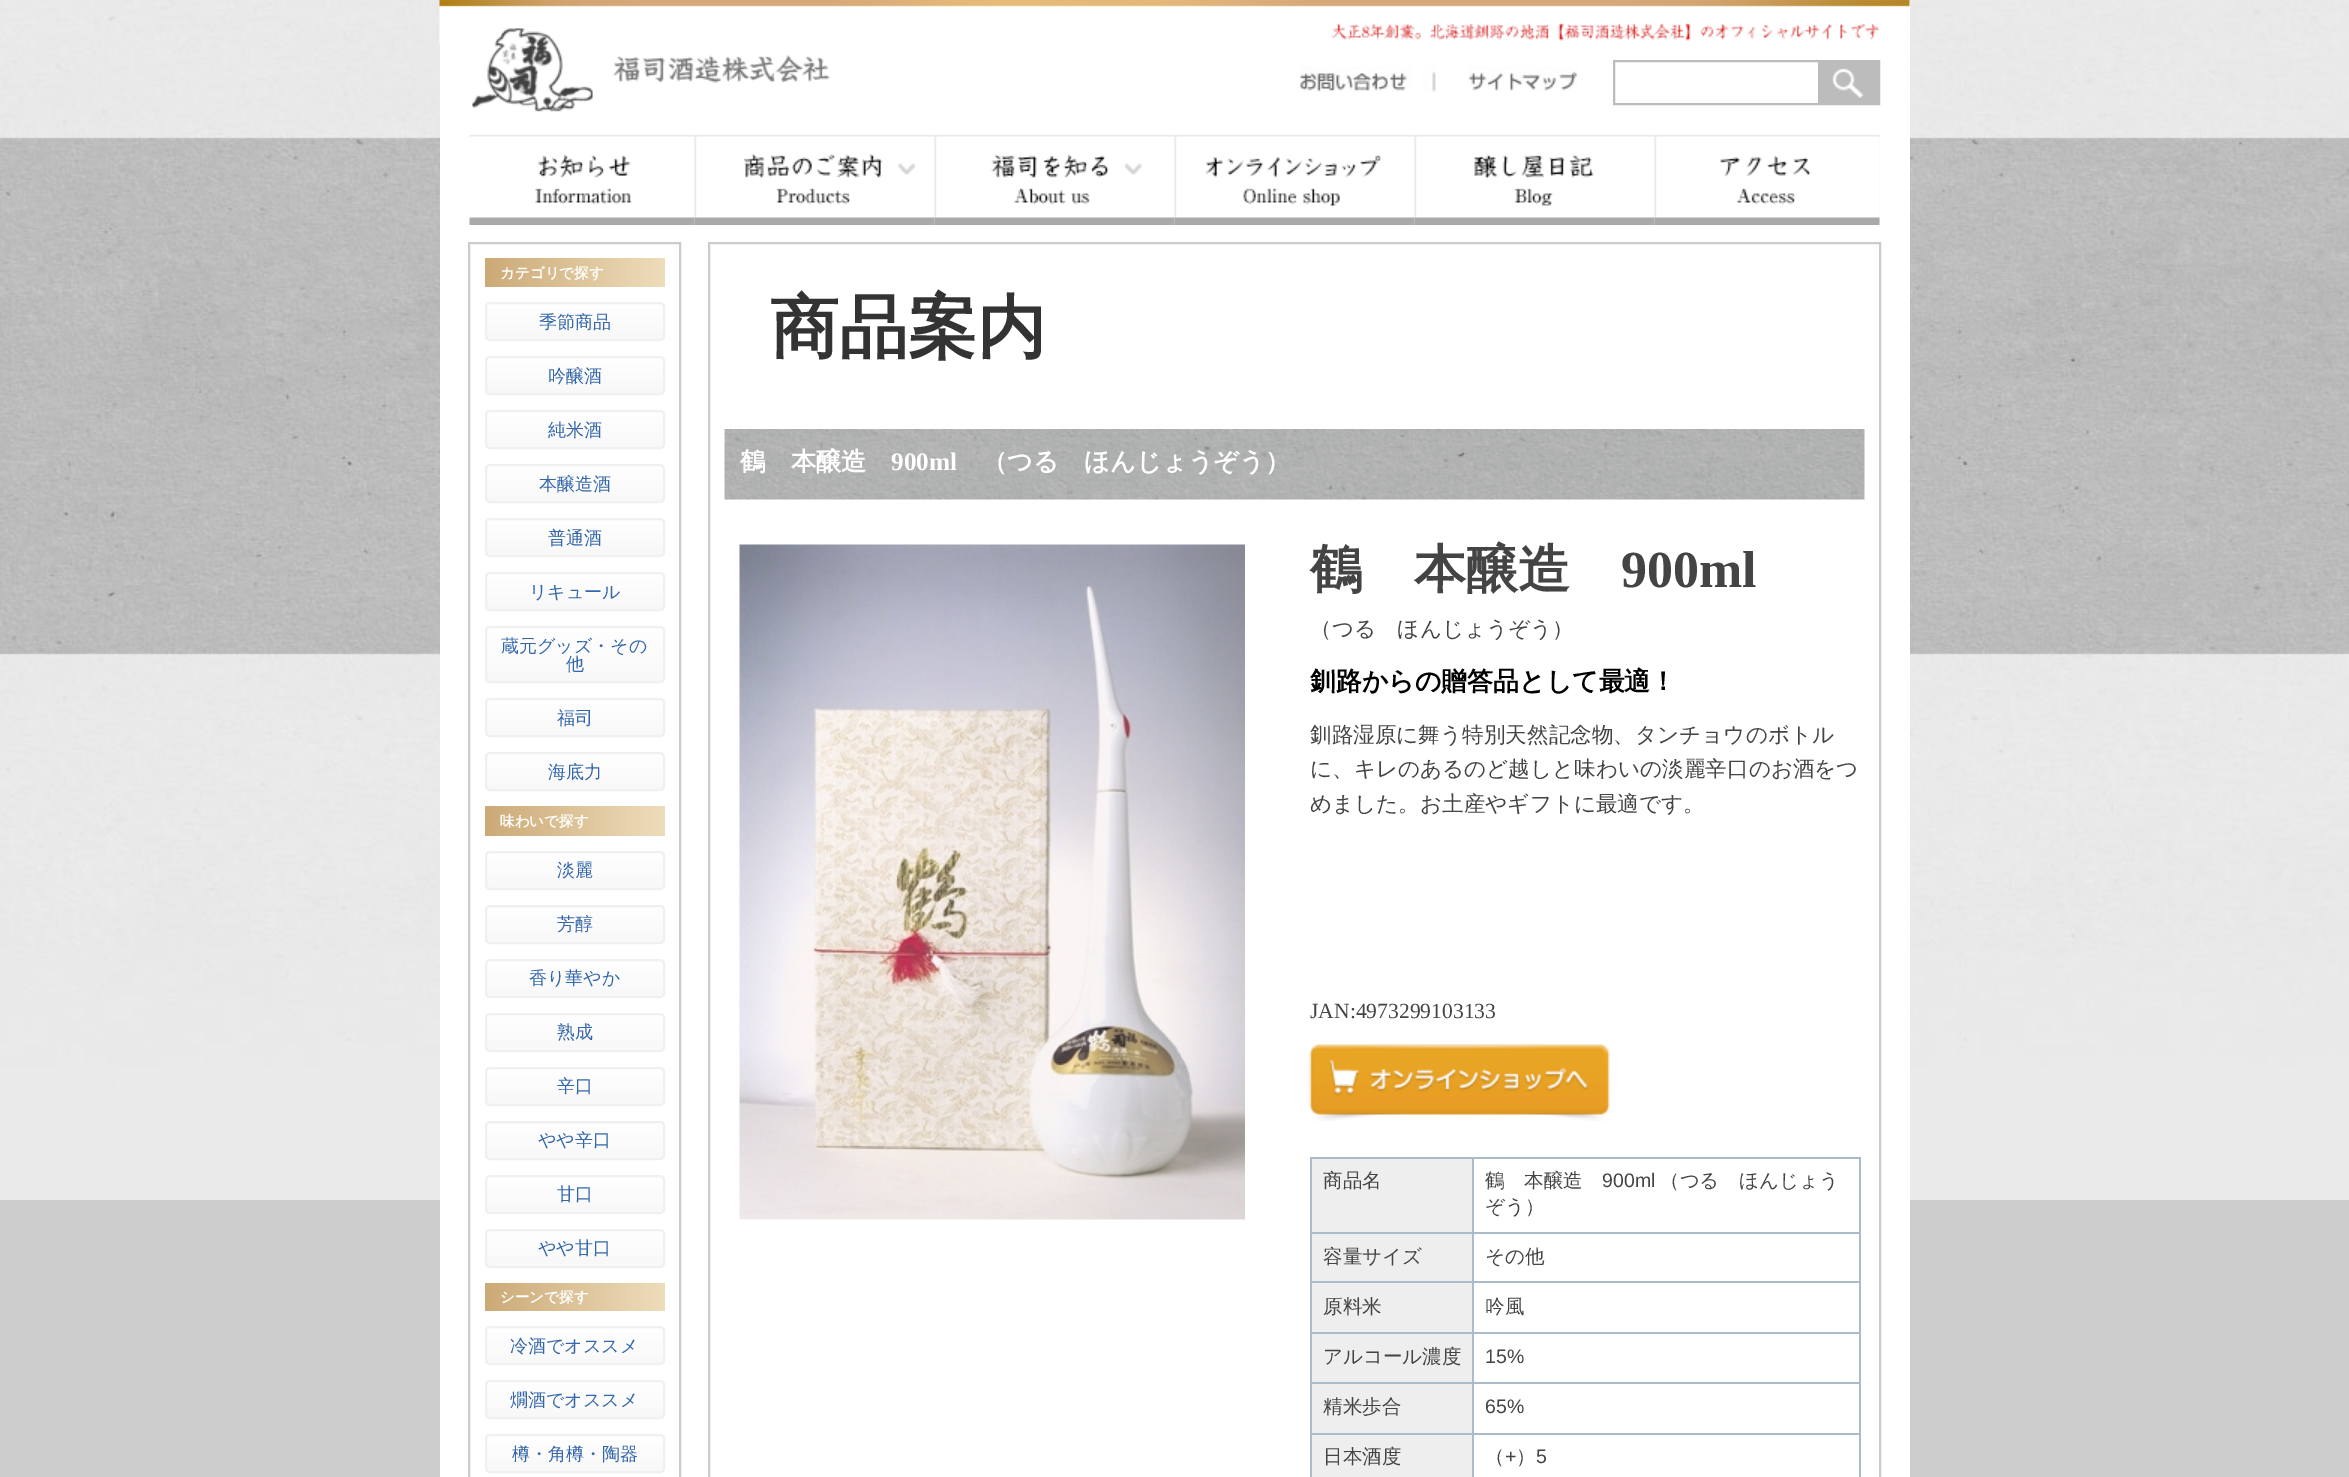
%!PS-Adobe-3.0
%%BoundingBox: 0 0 2349 1477
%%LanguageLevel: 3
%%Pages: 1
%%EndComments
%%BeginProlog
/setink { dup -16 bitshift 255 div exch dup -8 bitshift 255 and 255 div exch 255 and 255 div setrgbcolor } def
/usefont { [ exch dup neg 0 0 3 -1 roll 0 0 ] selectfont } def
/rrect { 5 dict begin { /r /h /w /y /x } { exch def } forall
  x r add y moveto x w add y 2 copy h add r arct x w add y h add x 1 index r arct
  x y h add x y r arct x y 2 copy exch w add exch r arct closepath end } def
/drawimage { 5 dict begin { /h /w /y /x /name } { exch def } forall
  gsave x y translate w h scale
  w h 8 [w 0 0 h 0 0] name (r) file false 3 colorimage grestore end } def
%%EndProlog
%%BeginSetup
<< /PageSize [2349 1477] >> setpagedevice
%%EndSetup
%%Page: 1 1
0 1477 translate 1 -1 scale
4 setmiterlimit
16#CCCCCC setink
0 0 2349 1477 rectfill
(img1.raw) 0 0 2349 1200 drawimage
16#FFFFFF setink
440 0 1470 1477 rectfill
(img2.raw) 439 0 1471 45 drawimage
(img3.raw) 472 28 358 84 drawimage
(img4.raw) 1299 66 137 26 drawimage
(img5.raw) 1468 66 110 25 drawimage
16#BCBCBC setink
2 setlinewidth
1614 61 265 43 rectstroke
1818 62 60 41 rectfill
(img6.raw) 1832 68 32 30 drawimage
16#F8F8F8 setink
694 135 1186 90 rectfill
(img7.raw) 469 135 226 90 drawimage
(img8.raw) 694 135 241 90 drawimage
(img9.raw) 934 135 241 90 drawimage
(img10.raw) 1174 135 241 90 drawimage
(img11.raw) 1414 135 241 90 drawimage
(img12.raw) 1654 135 226 90 drawimage
16#CCCCCC setink
469 243 211 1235 rectstroke
gsave 485 258 moveto 665 258 lineto 665 287 lineto 485 287 lineto closepath clip newpath
<< /ShadingType 2 /ColorSpace /DeviceRGB /Coords [665 258 485 258] /Extend [true true] /Function << /FunctionType 2 /Domain [0 1] /C0 [0.933 0.867 0.733] /C1 [0.8 0.667 0.467] /N 1 >> >> shfill grestore
/WenQuanYiZenHei-Bold 14.5 usefont
16#FFFFFF setink
500 278 moveto (カテゴリで探す) show
gsave
485 302 180 39 5 rrect clip newpath
gsave 485 303 moveto 665 303 lineto 665 339 lineto 485 339 lineto closepath clip newpath
<< /ShadingType 2 /ColorSpace /DeviceRGB /Coords [486 303 486 339] /Extend [true true] /Function << /FunctionType 2 /Domain [0 1] /C0 [1 1 1] /C1 [0.973 0.973 0.973] /N 1 >> >> shfill grestore
grestore
16#F0F0F0 setink
486 303 178 37 4 rrect stroke
/WenQuanYiZenHei-Medium 18 usefont
16#3366AA setink
539 328 moveto (季節商品) show
gsave
485 356 180 39 5 rrect clip newpath
gsave 485 357 moveto 665 357 lineto 665 393 lineto 485 393 lineto closepath clip newpath
<< /ShadingType 2 /ColorSpace /DeviceRGB /Coords [486 357 486 393] /Extend [true true] /Function << /FunctionType 2 /Domain [0 1] /C0 [1 1 1] /C1 [0.973 0.973 0.973] /N 1 >> >> shfill grestore
grestore
16#F0F0F0 setink
486 357 178 37 4 rrect stroke
16#3366AA setink
548 382 moveto (吟醸酒) show
gsave
485 410 180 39 5 rrect clip newpath
gsave 485 411 moveto 665 411 lineto 665 447 lineto 485 447 lineto closepath clip newpath
<< /ShadingType 2 /ColorSpace /DeviceRGB /Coords [486 411 486 447] /Extend [true true] /Function << /FunctionType 2 /Domain [0 1] /C0 [1 1 1] /C1 [0.973 0.973 0.973] /N 1 >> >> shfill grestore
grestore
16#F0F0F0 setink
486 411 178 37 4 rrect stroke
16#3366AA setink
548 436 moveto (純米酒) show
gsave
485 464 180 39 5 rrect clip newpath
gsave 485 465 moveto 665 465 lineto 665 501 lineto 485 501 lineto closepath clip newpath
<< /ShadingType 2 /ColorSpace /DeviceRGB /Coords [486 465 486 501] /Extend [true true] /Function << /FunctionType 2 /Domain [0 1] /C0 [1 1 1] /C1 [0.973 0.973 0.973] /N 1 >> >> shfill grestore
grestore
16#F0F0F0 setink
486 465 178 37 4 rrect stroke
16#3366AA setink
539 490 moveto (本醸造酒) show
gsave
485 518 180 39 5 rrect clip newpath
gsave 485 519 moveto 665 519 lineto 665 555 lineto 485 555 lineto closepath clip newpath
<< /ShadingType 2 /ColorSpace /DeviceRGB /Coords [486 519 486 555] /Extend [true true] /Function << /FunctionType 2 /Domain [0 1] /C0 [1 1 1] /C1 [0.973 0.973 0.973] /N 1 >> >> shfill grestore
grestore
16#F0F0F0 setink
486 519 178 37 4 rrect stroke
16#3366AA setink
548 544 moveto (普通酒) show
gsave
485 572 180 39 5 rrect clip newpath
gsave 485 573 moveto 665 573 lineto 665 609 lineto 485 609 lineto closepath clip newpath
<< /ShadingType 2 /ColorSpace /DeviceRGB /Coords [486 573 486 609] /Extend [true true] /Function << /FunctionType 2 /Domain [0 1] /C0 [1 1 1] /C1 [0.973 0.973 0.973] /N 1 >> >> shfill grestore
grestore
16#F0F0F0 setink
486 573 178 37 4 rrect stroke
16#3366AA setink
529 598 moveto (リキュール) show
gsave
485 626 180 57 5 rrect clip newpath
gsave 485 627 moveto 665 627 lineto 665 681 lineto 485 681 lineto closepath clip newpath
<< /ShadingType 2 /ColorSpace /DeviceRGB /Coords [486 627 486 681] /Extend [true true] /Function << /FunctionType 2 /Domain [0 1] /C0 [1 1 1] /C1 [0.973 0.973 0.973] /N 1 >> >> shfill grestore
grestore
16#F0F0F0 setink
486 627 178 55 4 rrect stroke
16#3366AA setink
501 652 moveto (蔵元グッズ・その) show
566 670 moveto (他) show
gsave
485 698 180 39 5 rrect clip newpath
gsave 485 699 moveto 665 699 lineto 665 735 lineto 485 735 lineto closepath clip newpath
<< /ShadingType 2 /ColorSpace /DeviceRGB /Coords [486 699 486 735] /Extend [true true] /Function << /FunctionType 2 /Domain [0 1] /C0 [1 1 1] /C1 [0.973 0.973 0.973] /N 1 >> >> shfill grestore
grestore
16#F0F0F0 setink
486 699 178 37 4 rrect stroke
16#3366AA setink
557 724 moveto (福司) show
gsave
485 752 180 39 5 rrect clip newpath
gsave 485 753 moveto 665 753 lineto 665 789 lineto 485 789 lineto closepath clip newpath
<< /ShadingType 2 /ColorSpace /DeviceRGB /Coords [486 753 486 789] /Extend [true true] /Function << /FunctionType 2 /Domain [0 1] /C0 [1 1 1] /C1 [0.973 0.973 0.973] /N 1 >> >> shfill grestore
grestore
16#F0F0F0 setink
486 753 178 37 4 rrect stroke
16#3366AA setink
548 778 moveto (海底力) show
gsave 485 806 moveto 665 806 lineto 665 836 lineto 485 836 lineto closepath clip newpath
<< /ShadingType 2 /ColorSpace /DeviceRGB /Coords [665 806 485 806] /Extend [true true] /Function << /FunctionType 2 /Domain [0 1] /C0 [0.933 0.867 0.733] /C1 [0.8 0.667 0.467] /N 1 >> >> shfill grestore
/WenQuanYiZenHei-Bold 14.5 usefont
16#FFFFFF setink
500 826 moveto (味わいで探す) show
gsave
485 851 180 39 5 rrect clip newpath
gsave 485 852 moveto 665 852 lineto 665 888 lineto 485 888 lineto closepath clip newpath
<< /ShadingType 2 /ColorSpace /DeviceRGB /Coords [486 852 486 888] /Extend [true true] /Function << /FunctionType 2 /Domain [0 1] /C0 [1 1 1] /C1 [0.973 0.973 0.973] /N 1 >> >> shfill grestore
grestore
16#F0F0F0 setink
486 852 178 37 4 rrect stroke
/WenQuanYiZenHei-Medium 18 usefont
16#3366AA setink
557 876 moveto (淡麗) show
gsave
485 905 180 39 5 rrect clip newpath
gsave 485 906 moveto 665 906 lineto 665 942 lineto 485 942 lineto closepath clip newpath
<< /ShadingType 2 /ColorSpace /DeviceRGB /Coords [486 906 486 942] /Extend [true true] /Function << /FunctionType 2 /Domain [0 1] /C0 [1 1 1] /C1 [0.973 0.973 0.973] /N 1 >> >> shfill grestore
grestore
16#F0F0F0 setink
486 906 178 37 4 rrect stroke
16#3366AA setink
557 930 moveto (芳醇) show
gsave
485 959 180 39 5 rrect clip newpath
gsave 485 960 moveto 665 960 lineto 665 996 lineto 485 996 lineto closepath clip newpath
<< /ShadingType 2 /ColorSpace /DeviceRGB /Coords [486 960 486 996] /Extend [true true] /Function << /FunctionType 2 /Domain [0 1] /C0 [1 1 1] /C1 [0.973 0.973 0.973] /N 1 >> >> shfill grestore
grestore
16#F0F0F0 setink
486 960 178 37 4 rrect stroke
16#3366AA setink
529 984 moveto (香り華やか) show
gsave
485 1013 180 39 5 rrect clip newpath
gsave 485 1014 moveto 665 1014 lineto 665 1050 lineto 485 1050 lineto closepath clip newpath
<< /ShadingType 2 /ColorSpace /DeviceRGB /Coords [486 1014 486 1050] /Extend [true true] /Function << /FunctionType 2 /Domain [0 1] /C0 [1 1 1] /C1 [0.973 0.973 0.973] /N 1 >> >> shfill grestore
grestore
16#F0F0F0 setink
486 1014 178 37 4 rrect stroke
16#3366AA setink
557 1038 moveto (熟成) show
gsave
485 1067 180 39 5 rrect clip newpath
gsave 485 1068 moveto 665 1068 lineto 665 1104 lineto 485 1104 lineto closepath clip newpath
<< /ShadingType 2 /ColorSpace /DeviceRGB /Coords [486 1068 486 1104] /Extend [true true] /Function << /FunctionType 2 /Domain [0 1] /C0 [1 1 1] /C1 [0.973 0.973 0.973] /N 1 >> >> shfill grestore
grestore
16#F0F0F0 setink
486 1068 178 37 4 rrect stroke
16#3366AA setink
557 1092 moveto (辛口) show
gsave
485 1121 180 39 5 rrect clip newpath
gsave 485 1122 moveto 665 1122 lineto 665 1158 lineto 485 1158 lineto closepath clip newpath
<< /ShadingType 2 /ColorSpace /DeviceRGB /Coords [486 1122 486 1158] /Extend [true true] /Function << /FunctionType 2 /Domain [0 1] /C0 [1 1 1] /C1 [0.973 0.973 0.973] /N 1 >> >> shfill grestore
grestore
16#F0F0F0 setink
486 1122 178 37 4 rrect stroke
16#3366AA setink
538 1146 moveto (やや辛口) show
gsave
485 1175 180 39 5 rrect clip newpath
gsave 485 1176 moveto 665 1176 lineto 665 1212 lineto 485 1212 lineto closepath clip newpath
<< /ShadingType 2 /ColorSpace /DeviceRGB /Coords [486 1176 486 1212] /Extend [true true] /Function << /FunctionType 2 /Domain [0 1] /C0 [1 1 1] /C1 [0.973 0.973 0.973] /N 1 >> >> shfill grestore
grestore
16#F0F0F0 setink
486 1176 178 37 4 rrect stroke
16#3366AA setink
557 1200 moveto (甘口) show
gsave
485 1229 180 39 5 rrect clip newpath
gsave 485 1230 moveto 665 1230 lineto 665 1266 lineto 485 1266 lineto closepath clip newpath
<< /ShadingType 2 /ColorSpace /DeviceRGB /Coords [486 1230 486 1266] /Extend [true true] /Function << /FunctionType 2 /Domain [0 1] /C0 [1 1 1] /C1 [0.973 0.973 0.973] /N 1 >> >> shfill grestore
grestore
16#F0F0F0 setink
486 1230 178 37 4 rrect stroke
16#3366AA setink
538 1254 moveto (やや甘口) show
gsave 485 1283 moveto 665 1283 lineto 665 1311 lineto 485 1311 lineto closepath clip newpath
<< /ShadingType 2 /ColorSpace /DeviceRGB /Coords [665 1283 485 1283] /Extend [true true] /Function << /FunctionType 2 /Domain [0 1] /C0 [0.933 0.867 0.733] /C1 [0.8 0.667 0.467] /N 1 >> >> shfill grestore
/WenQuanYiZenHei-Bold 14.5 usefont
16#FFFFFF setink
500 1302 moveto (シーンで探す) show
gsave
485 1326 180 39 5 rrect clip newpath
gsave 485 1328 moveto 665 1328 lineto 665 1364 lineto 485 1364 lineto closepath clip newpath
<< /ShadingType 2 /ColorSpace /DeviceRGB /Coords [486 1328 486 1364] /Extend [true true] /Function << /FunctionType 2 /Domain [0 1] /C0 [1 1 1] /C1 [0.973 0.973 0.973] /N 1 >> >> shfill grestore
grestore
16#F0F0F0 setink
486 1327 178 37 4 rrect stroke
/WenQuanYiZenHei-Medium 18 usefont
16#3366AA setink
510 1352 moveto (冷酒でオススメ) show
gsave
485 1380 180 39 5 rrect clip newpath
gsave 485 1382 moveto 665 1382 lineto 665 1418 lineto 485 1418 lineto closepath clip newpath
<< /ShadingType 2 /ColorSpace /DeviceRGB /Coords [486 1382 486 1418] /Extend [true true] /Function << /FunctionType 2 /Domain [0 1] /C0 [1 1 1] /C1 [0.973 0.973 0.973] /N 1 >> >> shfill grestore
grestore
16#F0F0F0 setink
486 1381 178 37 4 rrect stroke
16#3366AA setink
510 1406 moveto (燗酒でオススメ) show
gsave
485 1434 180 39 5 rrect clip newpath
gsave 485 1436 moveto 665 1436 lineto 665 1472 lineto 485 1472 lineto closepath clip newpath
<< /ShadingType 2 /ColorSpace /DeviceRGB /Coords [486 1436 486 1472] /Extend [true true] /Function << /FunctionType 2 /Domain [0 1] /C0 [1 1 1] /C1 [0.973 0.973 0.973] /N 1 >> >> shfill grestore
grestore
16#F0F0F0 setink
486 1435 178 37 4 rrect stroke
16#3366AA setink
512 1460 moveto (樽・角樽・陶器) show
16#CCCCCC setink
709 243 1171 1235 rectstroke
/WenQuanYiZenHei-Bold 69 usefont
16#333333 setink
770 351 moveto (商品案内) show
(img13.raw) 724 429 1141 71 drawimage
/WenQuanYiZenHei-Bold 25.25 usefont
16#FFFFFF setink
740 470 moveto (鶴　本醸造) show
/LiberationSerif-Bold 25.25 usefont
891 470 moveto (900ml) show
/WenQuanYiZenHei-Bold 25.25 usefont
982 470 moveto (（つる　ほんじょうぞう）) show
(img14.raw) 739 544 506 676 drawimage
/WenQuanYiZenHei-Bold 52 usefont
16#444444 setink
1310 587 moveto (鶴　本醸造) show
/LiberationSerif-Bold 52 usefont
1621 587 moveto (900ml) show
/WenQuanYiZenHei-Medium 21.6 usefont
1310 636 moveto (（つる　ほんじょうぞう）) show
/WenQuanYiZenHei-Bold 25.9 usefont
16#000000 setink
1310 690 moveto (釧路からの贈答品として最適！) show
/WenQuanYiZenHei-Medium 21.6 usefont
16#444444 setink
[
    [(釧路湿原に舞う特別天然記念物、タンチョウのボトル) 1310 742]
    [(に、キレのあるのど越しと味わいの淡麗辛口のお酒をつ) 1310 776]
    [(めました。お土産やギフトに最適です。) 1310 811]
] { aload pop moveto show } forall
/LiberationSerif-Regular 21.6 usefont
1310 1018 moveto (JAN:4973299103133) show
(img15.raw) 1309 1044 301 77 drawimage
[
    [1310 1157 550 2 16#AABBCC]
    [1859 1157 2 320 16#AABBCC]
    [1310 1157 2 320 16#AABBCC]
    [1312 1159 160 73 16#EEEEEE]
] { aload pop setink rectfill } forall
/WenQuanYiZenHei-Medium 19.5 usefont
16#444444 setink
1323 1187 moveto (商品名) show
[
    [1472 1232 388 2 16#AABBCC]
    [1472 1281 388 2 16#AABBCC]
    [1472 1332 388 2 16#AABBCC]
    [1472 1382 388 2 16#AABBCC]
    [1472 1433 388 2 16#AABBCC]
    [1472 1433 2 44 16#AABBCC]
    [1310 1433 163 2 16#AABBCC]
    [1472 1382 2 52 16#AABBCC]
    [1310 1382 163 2 16#AABBCC]
    [1472 1332 2 51 16#AABBCC]
    [1310 1332 163 2 16#AABBCC]
    [1472 1281 2 53 16#AABBCC]
    [1310 1281 163 2 16#AABBCC]
    [1472 1232 2 51 16#AABBCC]
    [1310 1232 163 2 16#AABBCC]
    [1472 1157 2 76 16#AABBCC]
] { aload pop setink rectfill } forall
16#444444 setink
1485 1187 moveto (鶴　本醸造) show
/LiberationSans-Regular 19.5 usefont
1602 1187 moveto (900ml) show
/WenQuanYiZenHei-Medium 19.5 usefont
1660 1187 moveto (（つる　ほんじょう) show
1485 1213 moveto (ぞう）) show
16#EEEEEE setink
1312 1234 160 47 rectfill
16#444444 setink
1323 1263 moveto (容量サイズ) show
1485 1263 moveto (その他) show
16#EEEEEE setink
1312 1283 160 49 rectfill
16#444444 setink
1323 1313 moveto (原料米) show
1485 1313 moveto (吟風) show
16#EEEEEE setink
1312 1334 160 48 rectfill
16#444444 setink
1323 1363 moveto (アルコール濃度) show
/LiberationSans-Regular 19.5 usefont
1485 1363 moveto (15%) show
16#EEEEEE setink
1312 1384 160 49 rectfill
/WenQuanYiZenHei-Medium 19.5 usefont
16#444444 setink
1323 1413 moveto (精米歩合) show
/LiberationSans-Regular 19.5 usefont
1485 1413 moveto (65%) show
16#EEEEEE setink
1312 1435 160 42 rectfill
/WenQuanYiZenHei-Medium 19.5 usefont
16#444444 setink
1323 1463 moveto (日本酒度) show
1485 1463 moveto (（) show
/LiberationSans-Regular 19.5 usefont
1505 1463 moveto (+) show
/WenQuanYiZenHei-Medium 19.5 usefont
1516 1463 moveto (）) show
/LiberationSans-Regular 19.5 usefont
1536 1463 moveto (5) show
showpage
%%EOF
